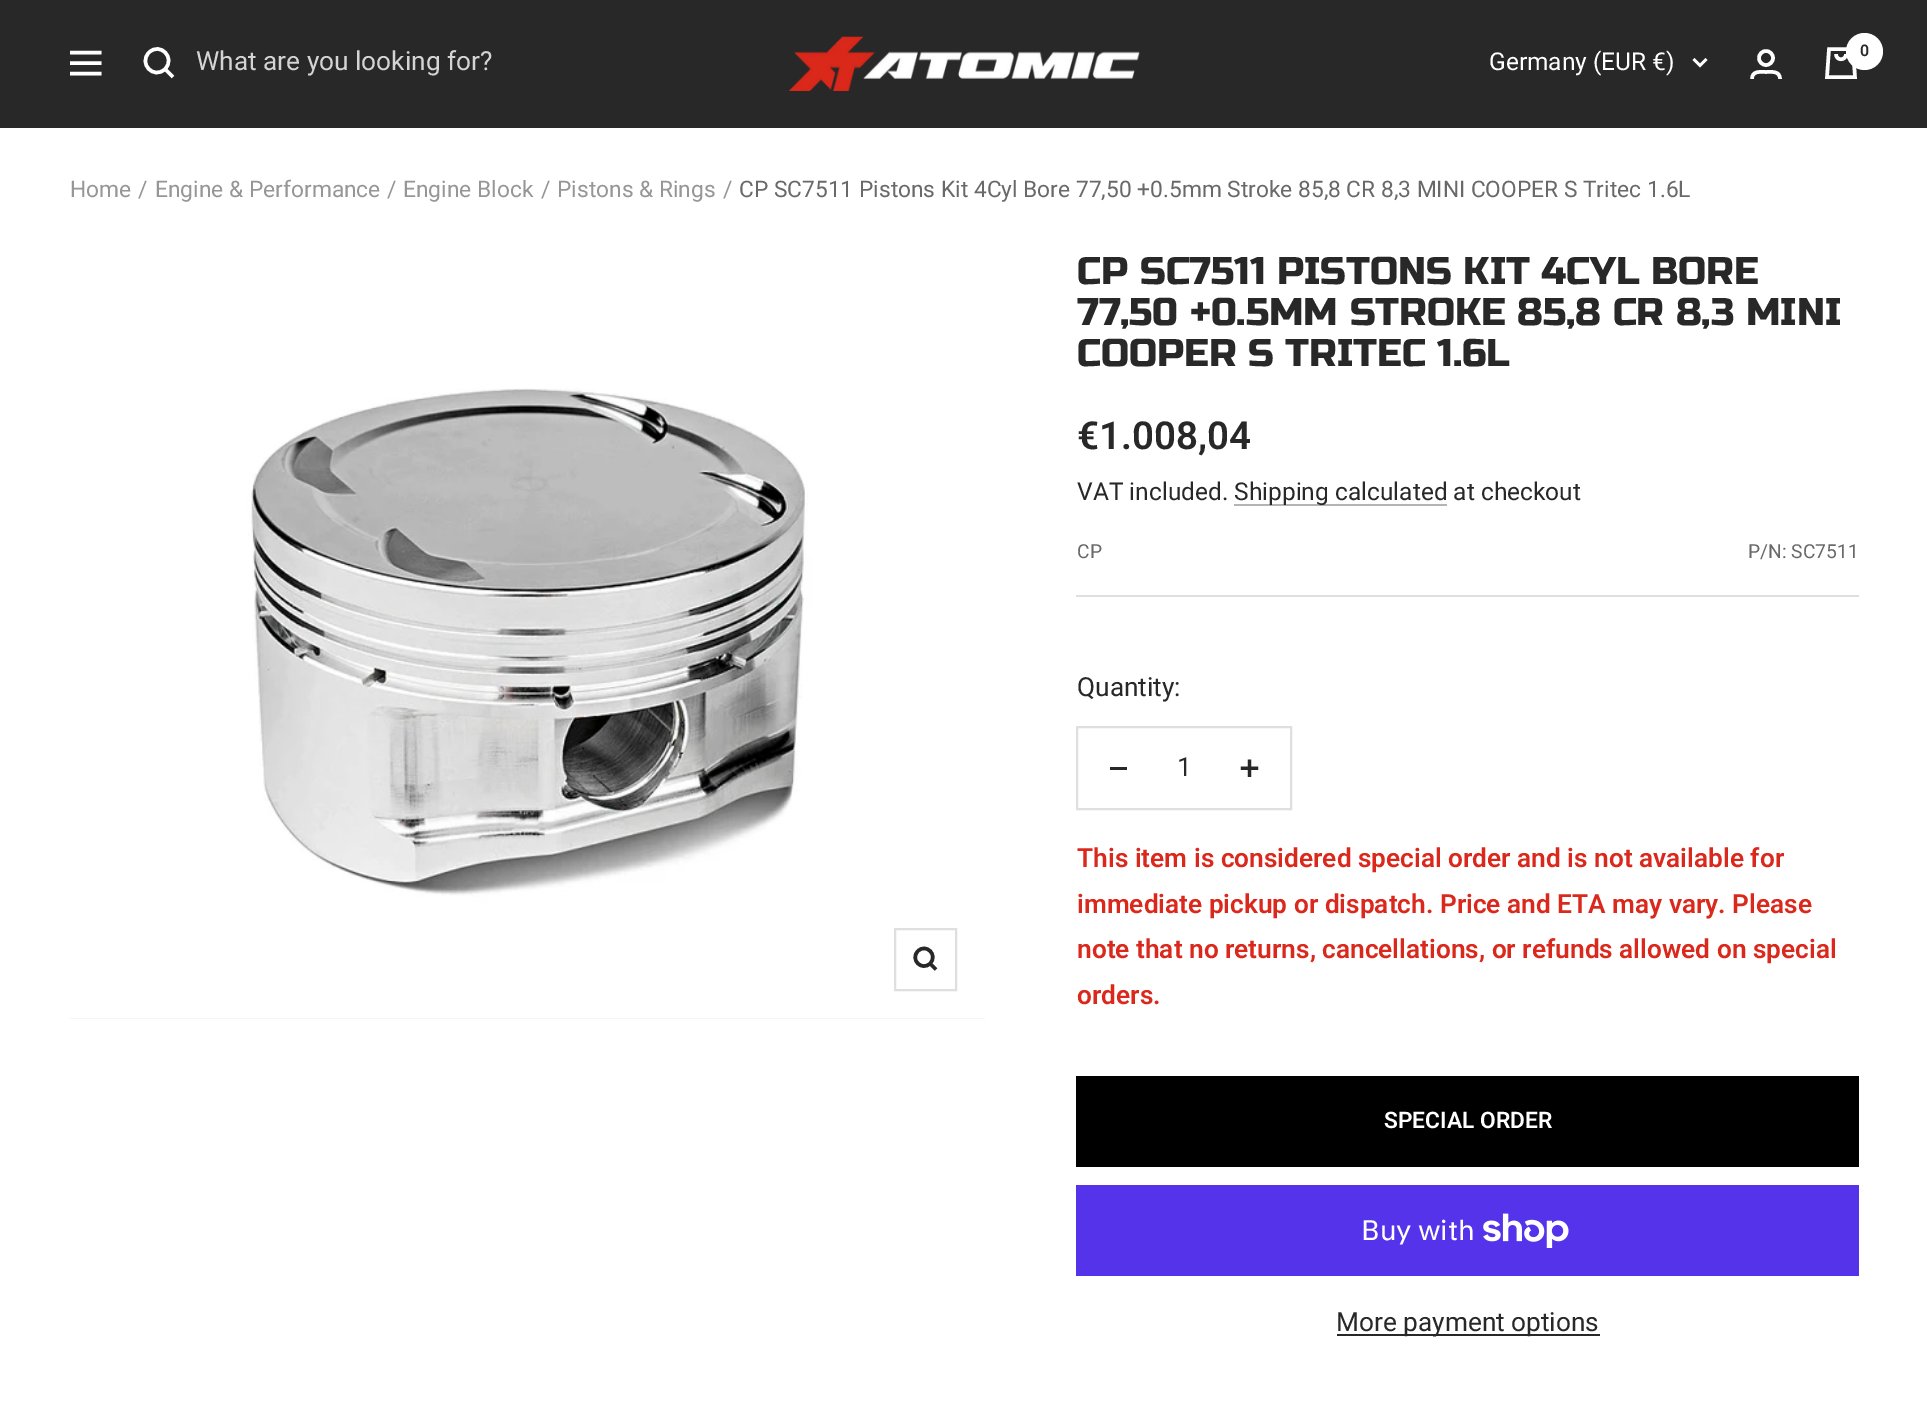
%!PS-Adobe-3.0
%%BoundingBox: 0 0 1927 1402
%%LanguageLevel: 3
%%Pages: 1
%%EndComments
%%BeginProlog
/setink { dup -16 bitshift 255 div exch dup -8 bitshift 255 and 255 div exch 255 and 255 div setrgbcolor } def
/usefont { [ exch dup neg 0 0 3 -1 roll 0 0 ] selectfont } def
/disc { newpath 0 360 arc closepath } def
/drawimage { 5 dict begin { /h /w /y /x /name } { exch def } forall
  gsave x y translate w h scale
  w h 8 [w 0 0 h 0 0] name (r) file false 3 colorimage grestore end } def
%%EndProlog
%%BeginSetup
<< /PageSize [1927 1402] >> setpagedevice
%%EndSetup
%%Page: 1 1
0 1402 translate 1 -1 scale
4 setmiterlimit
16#FFFFFF setink
0 0 1927 1402 rectfill
16#282828 setink
0 0 1927 128 rectfill
16#FFFFFF setink
3.5 setlinewidth
70 52.5 moveto 101.5 52.5 lineto 70 73.5 moveto 101.5 73.5 lineto closepath 70 63 moveto 101.5 63 lineto closepath stroke
165 69 moveto 176 58 160 41.5 149 52.5 curveto 138 63.5 154 80 165 69 curveto closepath 165 69 moveto 173 77 lineto stroke
/Roboto-Regular 26.25 usefont
16#D4D4D4 setink
196 70 moveto (What are you looking for?) show
(img1.raw) 789 36 351 55 drawimage
/Roboto-Regular 24.5 usefont
16#FFFFFF setink
1489 70 moveto (Germany \(EUR €\)) show
2.6 setlinewidth
1693.5 59 moveto 1700 65.5 lineto 1706.5 59 lineto stroke
3.5 setlinewidth
1766 58 7 disc stroke
1752 79 moveto 1752 70.5 1760.5 72 1766 72 curveto 1771 72 1780 70.5 1780 79 curveto stroke
1829 49 moveto 1853 49 lineto 1855 77 lineto 1827 77 lineto closepath 1836 54 moveto 1836 61 1846 61 1846 54 curveto stroke
1864.5 51.5 18.5 disc fill
/Roboto-SemiBold 16 usefont
16#282828 setink
1860 56 moveto (0) show
/Roboto-Regular 22.75 usefont
16#969696 setink
[
    [(Home) 70 197]
    [(/) 138 197]
    [(Engine & Performance) 155 197]
    [(/) 387 197]
    [(Engine Block) 403 197]
    [(/) 541 197]
    [(Pistons & Rings) 557 197]
    [(/) 723 197]
] { aload pop moveto show } forall
16#696969 setink
739 197 moveto (CP SC7511 Pistons Kit 4Cyl Bore 77,50 +0.5mm Stroke 85,8 CR 8,3 MINI COOPER S Tritec 1.6L) show
16#F5F5F5 setink
70 1018 915 1 rectfill
(img2.raw) 70 252 915 766 drawimage
16#DFDFDF setink
2 setlinewidth
895 929 61 61 rectstroke
16#282828 setink
3.5 setlinewidth
930 963.5 moveto 938.5 955 926 943 918 951 curveto 909.5 959.5 922 971.5 930 963.5 curveto closepath 930 963.5 moveto 936 969.5 lineto stroke
16#DFDFDF setink
1076 595 783 2 rectfill
/RussoOne-Regular 38.5 usefont
16#282828 setink
[
    [(CP SC7511 PISTONS KIT 4CYL BORE) 1077 284]
    [(77,50 +0.5MM STROKE 85,8 CR 8,3 MINI) 1077 325]
    [(COOPER S TRITEC 1.6L) 1077 366]
] { aload pop moveto show } forall
/Roboto-SemiBold 38.5 usefont
1077 449 moveto (€1.008,04) show
/Roboto-Regular 24.5 usefont
1077 500 moveto (VAT included.) show
16#B4B4B4 setink
1234 504 213 2 rectfill
16#282828 setink
1234 500 moveto (Shipping calculated at checkout) show
/Roboto-Regular 19.25 usefont
16#696969 setink
1077 558 moveto (CP) show
1748 558 moveto (P/N: SC7511) show
/Roboto-Regular 26.25 usefont
16#282828 setink
1077 696 moveto (Quantity:) show
16#DFDFDF setink
2 setlinewidth
1077 727 214 82 rectstroke
16#282828 setink
1110 767 17 3 rectfill
1177 776 moveto (1) show
(img3.raw) 1240 759 19 18 drawimage
/Roboto-SemiBold 26.25 usefont
16#DA291C setink
[
    [(This item is considered special order and is not available for) 1077 867]
    [(immediate pickup or dispatch. Price and ETA may vary. Please) 1077 913]
    [(note that no returns, cancellations, or refunds allowed on special) 1077 958]
    [(orders.) 1077 1004]
] { aload pop moveto show } forall
16#000000 setink
1076 1076 783 91 rectfill
/Roboto-SemiBold 22.75 usefont
16#FFFFFF setink
1384 1128 moveto (SPECIAL ORDER) show
16#5433EB setink
1076 1185 783 91 rectfill
/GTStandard-Regular 28 usefont
16#FFFFFF setink
1361 1240 moveto (Buy with) show
(img4.raw) 1483 1213 86 35 drawimage
16#282828 setink
1337 1334 263 2 rectfill
/Roboto-Regular 26.25 usefont
1336 1331 moveto (More payment options) show
showpage
%%EOF
